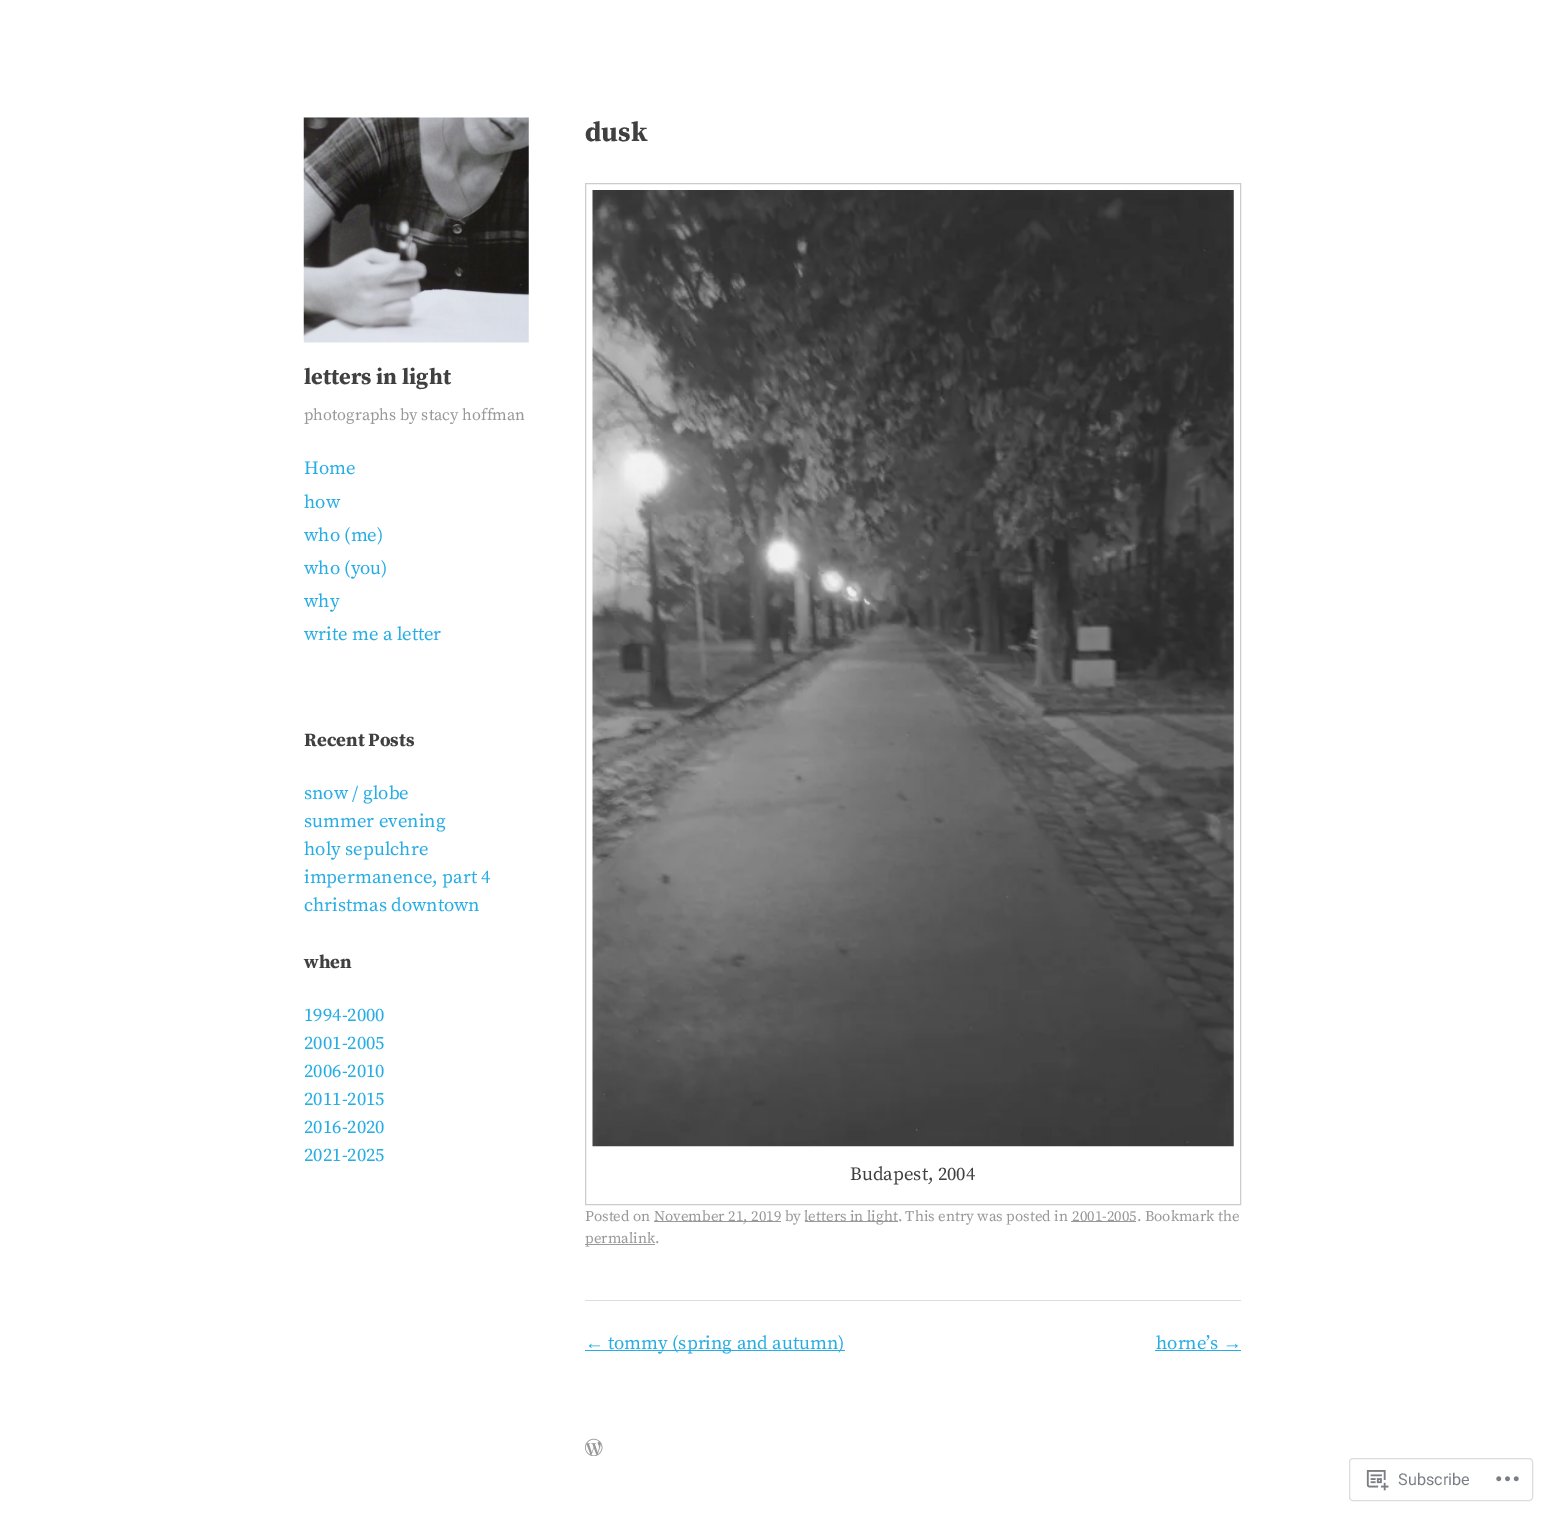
%!PS-Adobe-3.0
%%BoundingBox: 0 0 1544 1513
%%LanguageLevel: 3
%%Pages: 1
%%EndComments
%%BeginProlog
/setink { dup -16 bitshift 255 div exch dup -8 bitshift 255 and 255 div exch 255 and 255 div setrgbcolor } def
/usefont { [ exch dup neg 0 0 3 -1 roll 0 0 ] selectfont } def
/rrect { 5 dict begin { /r /h /w /y /x } { exch def } forall
  x r add y moveto x w add y 2 copy h add r arct x w add y h add x 1 index r arct
  x y h add x y r arct x y 2 copy exch w add exch r arct closepath end } def
/drawimage { 5 dict begin { /h /w /y /x /name } { exch def } forall
  gsave x y translate w h scale
  w h 8 [w 0 0 h 0 0] name (r) file false 3 colorimage grestore end } def
%%EndProlog
%%BeginSetup
<< /PageSize [1544 1513] >> setpagedevice
%%EndSetup
%%Page: 1 1
0 1513 translate 1 -1 scale
4 setmiterlimit
16#FFFFFF setink
0 0 1544 1513 rectfill
/SourceSerifPro-Bold 18.75 usefont
16#404040 setink
304 746 moveto (Recent Posts) show
/SourceSerifPro-Regular 18.75 usefont
16#26ADE4 setink
[
    [(snow / globe) 304 799]
    [(summer evening) 304 827]
    [(holy sepulchre) 304 855]
    [(impermanence, part 4) 304 883]
    [(christmas downtown) 304 911]
] { aload pop moveto show } forall
/SourceSerifPro-Bold 18.75 usefont
16#404040 setink
304 968 moveto (when) show
/SourceSerifPro-Regular 18.75 usefont
16#26ADE4 setink
[
    [(1994-2000) 304 1021]
    [(2001-2005) 304 1049]
    [(2006-2010) 304 1077]
    [(2011-2015) 304 1105]
    [(2016-2020) 304 1133]
    [(2021-2025) 304 1161]
] { aload pop moveto show } forall
16#DDDDDD setink
585 1300 656 1 rectfill
/SourceSerifPro-Bold 27.5 usefont
16#404040 setink
585 141 moveto (dusk) show
16#CCCCCC setink
585.5 183.5 655 1021 rectstroke
(img1.raw) 592 190 642 957 drawimage
/SourceSerifPro-Regular 18.75 usefont
16#404040 setink
850 1180 moveto (Budapest, 2004) show
/SourceSerifPro-Regular 15 usefont
16#999999 setink
585 1221 moveto (Posted on) show
654 1221 127 1 rectfill
654 1221 moveto (November 21, 2019 by) show
805 1221 93 1 rectfill
804 1221 moveto (letters in light. This entry was posted in) show
1071 1221 65 1 rectfill
1072 1221 moveto (2001-2005. Bookmark the) show
585 1244 70 1 rectfill
585 1243 moveto (permalink.) show
/LiberationSerif-Regular 18.75 usefont
16#26ADE4 setink
585 1349 moveto (←) show
585 1350 260 1 rectfill
/SourceSerifPro-Regular 18.75 usefont
608 1349 moveto (tommy \(spring and autumn\)) show
1156 1349 moveto (horne’s) show
/LiberationSerif-Regular 18.75 usefont
1223 1349 moveto (→) show
1155 1350 86 1 rectfill
(img2.raw) 303 117 226 226 drawimage
/SourceSerifPro-Bold 22.5 usefont
16#404040 setink
304 384 moveto (letters in light) show
/SourceSerifPro-Regular 16.25 usefont
16#999999 setink
304 420 moveto (photographs by stacy hoffman) show
/SourceSerifPro-Regular 18.75 usefont
16#26ADE4 setink
[
    [(Home) 304 474]
    [(how) 304 508]
    [(who \(me\)) 304 541]
    [(who \(you\)) 304 574]
    [(why) 304 607]
    [(write me a letter) 304 640]
] { aload pop moveto show } forall
(img3.raw) 585 1438 18 18 drawimage
16#DDDDDF setink
1349.5 1458.5 183 42 3.5 rrect stroke
(img4.raw) 1366 1470 23 21 drawimage
/Roboto-Regular 16.25 usefont
16#7B7F85 setink
1398 1485 moveto (Subscribe) show
(img5.raw) 1496 1476 23 6 drawimage
showpage
%%EOF
